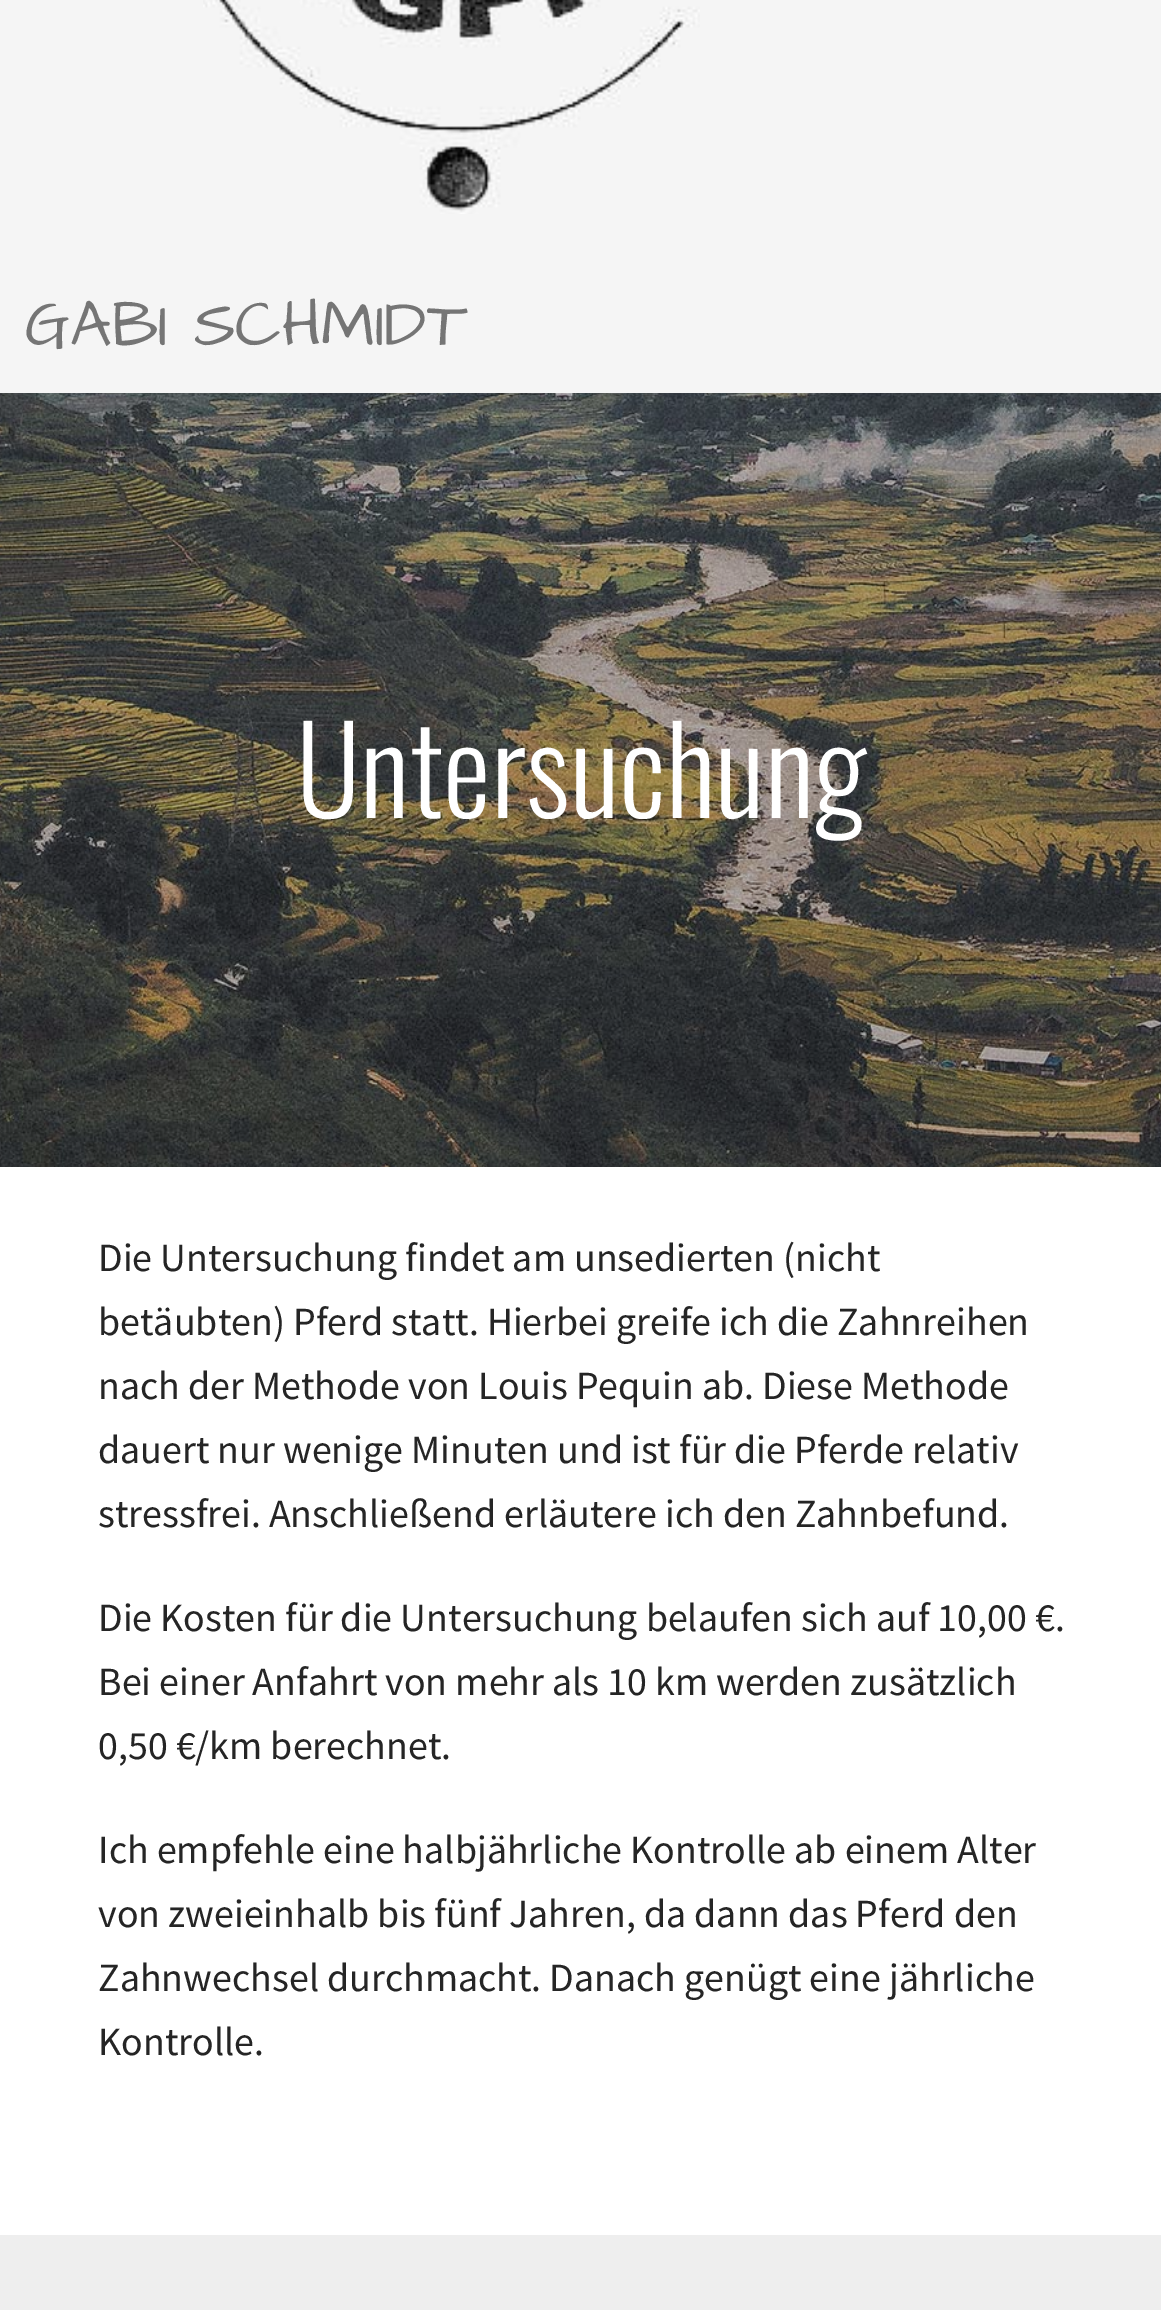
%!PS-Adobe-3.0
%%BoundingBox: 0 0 1161 2310
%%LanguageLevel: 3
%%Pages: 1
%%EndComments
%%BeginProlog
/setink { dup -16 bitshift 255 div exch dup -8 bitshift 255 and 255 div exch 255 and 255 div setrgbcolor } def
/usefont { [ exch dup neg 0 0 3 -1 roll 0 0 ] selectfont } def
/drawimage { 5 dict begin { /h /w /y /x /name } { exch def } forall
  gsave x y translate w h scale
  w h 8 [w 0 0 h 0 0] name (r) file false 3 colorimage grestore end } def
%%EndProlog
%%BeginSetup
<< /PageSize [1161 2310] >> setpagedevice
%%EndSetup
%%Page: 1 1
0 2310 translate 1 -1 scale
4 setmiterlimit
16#FFFFFF setink
0 0 1161 2310 rectfill
(img1.raw) 0 393 1161 774 drawimage
16#F5F5F5 setink
0 0 1161 393 rectfill
(img2.raw) 203 0 497 214 drawimage
/ArchitectsDaughter-Regular 65 usefont
16#757575 setink
25 345 moveto (GABI SCHMIDT) show
/Oswald-Light 120 usefont
16#FFFFFF setink
296 818 moveto (Untersuchung) show
/SourceSansPro-Regular 40 usefont
16#252525 setink
[
    [(Die Untersuchung findet am unsedierten \(nicht) 98 1271]
    [(betäubten\) Pferd statt. Hierbei greife ich die Zahnreihen) 98 1335]
    [(nach der Methode von Louis Pequin ab. Diese Methode) 98 1399]
    [(dauert nur wenige Minuten und ist für die Pferde relativ) 98 1463]
    [(stressfrei. Anschließend erläutere ich den Zahnbefund.) 98 1527]
    [(Die Kosten für die Untersuchung belaufen sich auf 10,00 €.) 98 1631]
    [(Bei einer Anfahrt von mehr als 10 km werden zusätzlich) 98 1695]
    [(0,50 €/km berechnet.) 98 1759]
    [(Ich empfehle eine halbjährliche Kontrolle ab einem Alter) 98 1863]
    [(von zweieinhalb bis fünf Jahren, da dann das Pferd den) 98 1927]
    [(Zahnwechsel durchmacht. Danach genügt eine jährliche) 98 1991]
    [(Kontrolle.) 98 2055]
] { aload pop moveto show } forall
16#EEEEEE setink
0 2235 1161 75 rectfill
showpage
%%EOF
